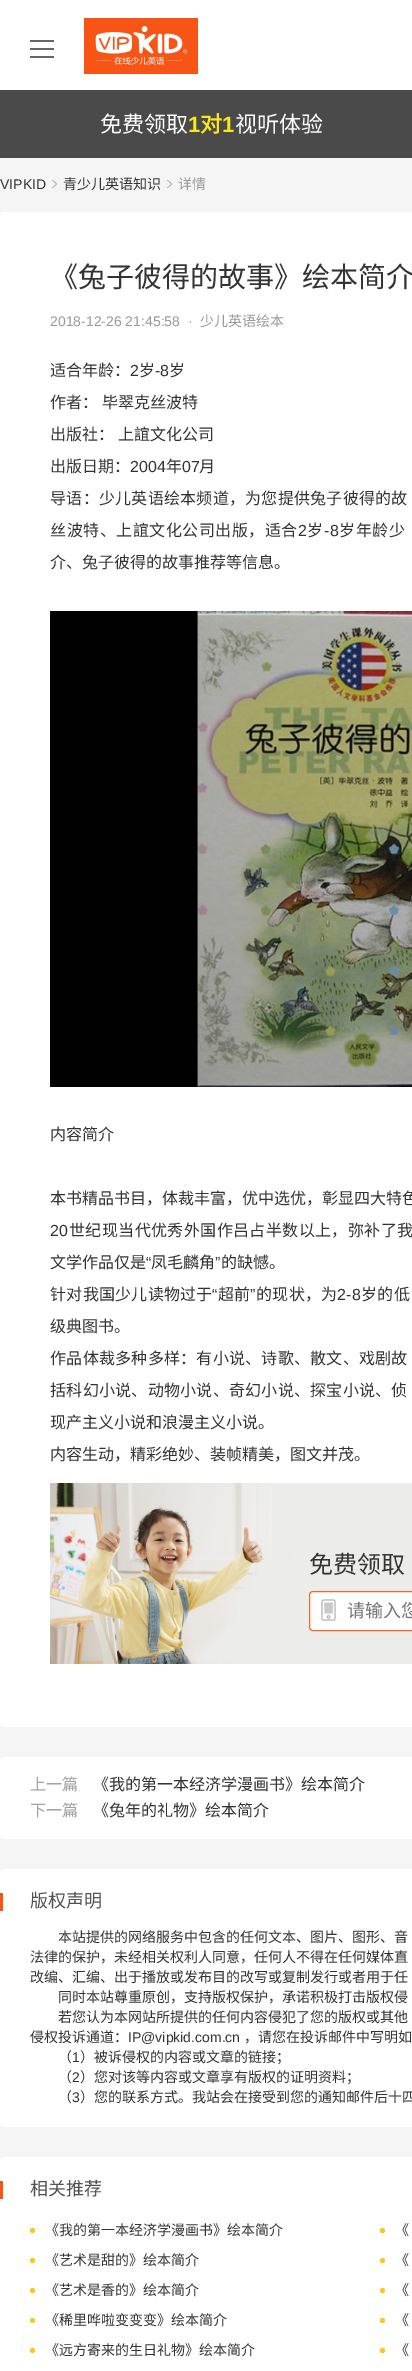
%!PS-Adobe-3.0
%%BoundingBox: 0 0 412 2371
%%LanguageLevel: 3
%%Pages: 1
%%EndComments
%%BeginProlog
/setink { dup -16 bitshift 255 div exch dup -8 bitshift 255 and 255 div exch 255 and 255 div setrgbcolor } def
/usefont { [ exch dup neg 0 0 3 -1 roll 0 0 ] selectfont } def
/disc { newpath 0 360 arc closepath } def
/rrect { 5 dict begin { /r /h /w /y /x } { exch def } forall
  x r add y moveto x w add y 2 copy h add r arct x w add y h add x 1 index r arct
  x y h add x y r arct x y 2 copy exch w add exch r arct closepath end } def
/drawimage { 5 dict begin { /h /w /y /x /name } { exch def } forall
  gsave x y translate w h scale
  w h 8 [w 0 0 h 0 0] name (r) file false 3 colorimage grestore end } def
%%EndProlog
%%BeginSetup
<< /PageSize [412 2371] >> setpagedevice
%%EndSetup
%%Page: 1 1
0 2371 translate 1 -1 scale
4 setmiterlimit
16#F5F5F5 setink
0 0 412 2371 rectfill
[
    [0 0 412 90 16#FFFFFF]
    [30 40 24 2 16#666666]
    [30 48 24 2 16#666666]
    [30 56 24 2 16#666666]
] { aload pop setink rectfill } forall
(img1.raw) 84 18 114 56 drawimage
16#4A4A4A setink
0 90 412 68 rectfill
/NotoSansCJKSC-Regular 22 usefont
16#FFFFFF setink
100 132 moveto (免费领取) show
/LiberationSans-Bold 22 usefont
16#F8E71C setink
188 132 moveto (1) show
/NotoSansCJKSC-Bold 22 usefont
200 132 moveto (对) show
/LiberationSans-Bold 22 usefont
222 132 moveto (1) show
/NotoSansCJKSC-Regular 22 usefont
16#FFFFFF setink
235 132 moveto (视听体验) show
/LiberationSans-Regular 14 usefont
16#333333 setink
0 189 moveto (VIPKID) show
(img2.raw) 51 179 7 10 drawimage
/NotoSansCJKSC-Regular 14 usefont
63 189 moveto (青少儿英语知识) show
(img3.raw) 166 179 7 10 drawimage
16#999999 setink
178 189 moveto (详情) show
16#FFFFFF setink
0 212 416 1515 4 rrect fill
/NotoSansCJKSC-Regular 28 usefont
16#333333 setink
50 287 moveto (《兔子彼得的故事》绘本简介) show
/LiberationSans-Regular 14 usefont
16#999999 setink
50 326 moveto (2018-12-26 21:45:58  ·) show
/NotoSansCJKSC-Regular 14 usefont
200 326 moveto (少儿英语绘本) show
/NotoSansCJKSC-Regular 16 usefont
16#333333 setink
50 376 moveto (适合年龄：) show
/LiberationSans-Regular 16 usefont
130 376 moveto (2) show
/NotoSansCJKSC-Regular 16 usefont
139 376 moveto (岁) show
/LiberationSans-Regular 16 usefont
155 376 moveto (-8) show
/NotoSansCJKSC-Regular 16 usefont
[
    [(岁) 169 376]
    [(作者：) 50 408]
    [(毕翠克丝波特) 102 408]
    [(出版社：) 50 440]
    [(上誼文化公司) 118 440]
    [(出版日期：) 50 472]
] { aload pop moveto show } forall
/LiberationSans-Regular 16 usefont
130 472 moveto (2004) show
/NotoSansCJKSC-Regular 16 usefont
166 472 moveto (年) show
/LiberationSans-Regular 16 usefont
182 472 moveto (07) show
/NotoSansCJKSC-Regular 16 usefont
199 472 moveto (月) show
50 504 moveto 0.25 0 (导语：少儿英语绘本频道，为您提供兔子彼得的故) ashow
50 536 moveto 0.5 0 (丝波特、上誼文化公司出版，适合) ashow
/LiberationSans-Regular 16 usefont
298 536 moveto 0.5 0 (2) ashow
/NotoSansCJKSC-Regular 16 usefont
307 536 moveto 0.5 0 (岁) ashow
/LiberationSans-Regular 16 usefont
324 536 moveto 0.5 0 (-8) ashow
/NotoSansCJKSC-Regular 16 usefont
339 536 moveto 0.5 0 (岁年龄少) ashow
50 568 moveto (介、兔子彼得的故事推荐等信息。) show
(img4.raw) 50 611 362 476 drawimage
50 1140 moveto (内容简介) show
50 1204 moveto (本书精品书目，体裁丰富，优中选优，彰显四大特色) show
/LiberationSans-Regular 16 usefont
50 1236 moveto 0.4 0 (20) ashow
/NotoSansCJKSC-Regular 16 usefont
69 1236 moveto 0.4 0 (世纪现当代优秀外国作吕占半数以上，弥补了我) ashow
50 1268 moveto (文学作品仅是) show
/LiberationSans-Regular 16 usefont
146 1268 moveto (“) show
/NotoSansCJKSC-Regular 16 usefont
151 1268 moveto (凤毛麟角) show
/LiberationSans-Regular 16 usefont
215 1268 moveto (”) show
/NotoSansCJKSC-Regular 16 usefont
221 1268 moveto (的缺憾。) show
50 1300 moveto 0.25 0 (针对我国少儿读物过于) ashow
/LiberationSans-Regular 16 usefont
212 1300 moveto 0.25 0 (“) ashow
/NotoSansCJKSC-Regular 16 usefont
218 1300 moveto 0.25 0 (超前) ashow
/LiberationSans-Regular 16 usefont
250 1300 moveto 0.25 0 (”) ashow
/NotoSansCJKSC-Regular 16 usefont
256 1300 moveto 0.25 0 (的现状，为) ashow
/LiberationSans-Regular 16 usefont
337 1300 moveto 0.25 0 (2-8) ashow
/NotoSansCJKSC-Regular 16 usefont
361 1300 moveto 0.25 0 (岁的低) ashow
50 1332 moveto (级典图书。) show
50 1364 moveto 0.25 0 (作品体裁多种多样：有小说、诗歌、散文、戏剧故) ashow
50 1396 moveto 0.25 0 (括科幻小说、动物小说、奇幻小说、探宝小说、侦) ashow
50 1428 moveto (现产主义小说和浪漫主义小说。) show
50 1460 moveto (内容生动，精彩绝妙、装帧精美，图文并茂。) show
(img5.raw) 50 1483 362 181 drawimage
/NotoSansCJKSC-Regular 24 usefont
309 1573 moveto (免费领取) show
16#FFFFFF setink
309 1591 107 40 4 rrect fill
(img6.raw) 321 1599 15 22 drawimage
16#FF6422 setink
309.5 1591.5 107 39 3.5 rrect stroke
/NotoSansCJKSC-Regular 18 usefont
16#757575 setink
347 1617 moveto (请输入您) show
16#FFFFFF setink
0 1757 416 82 4 rrect fill
/NotoSansCJKSC-Regular 16 usefont
16#A2A2A2 setink
30 1790 moveto (上一篇) show
16#333333 setink
93 1790 moveto (《我的第一本经济学漫画书》绘本简介) show
16#A2A2A2 setink
30 1816 moveto (下一篇) show
16#333333 setink
93 1816 moveto (《兔年的礼物》绘本简介) show
16#FFFFFF setink
0 1869 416 258 4 rrect fill
16#F85415 setink
0 1893 3 18 rectfill
/NotoSansCJKSC-Regular 18 usefont
16#525252 setink
30 1907 moveto (版权声明) show
/NotoSansCJKSC-Regular 14 usefont
16#333333 setink
[
    [(本站提供的网络服务中包含的任何文本、图片、图形、音) 58 1942]
    [(法律的保护，未经相关权利人同意，任何人不得在任何媒体直) 30 1962]
    [(改编、汇编、出于播放或发布目的改写或复制发行或者用于任) 30 1982]
    [(同时本站尊重原创，支持版权保护，承诺积极打击版权侵) 58 2002]
    [(若您认为本网站所提供的任何内容侵犯了您的版权或其他) 58 2022]
    [(侵权投诉通道：) 30 2042]
] { aload pop moveto show } forall
/LiberationSans-Regular 14 usefont
128 2042 moveto (IP@vipkid.com.cn) show
/NotoSansCJKSC-Regular 14 usefont
244 2042 moveto (，请您在投诉邮件中写明如) show
58 2062 moveto (（) show
/LiberationSans-Regular 14 usefont
72 2062 moveto (1) show
/NotoSansCJKSC-Regular 14 usefont
80 2062 moveto (）被诉侵权的内容或文章的链接；) show
58 2082 moveto (（) show
/LiberationSans-Regular 14 usefont
72 2082 moveto (2) show
/NotoSansCJKSC-Regular 14 usefont
80 2082 moveto (）您对该等内容或文章享有版权的证明资料；) show
58 2102 moveto (（) show
/LiberationSans-Regular 14 usefont
72 2102 moveto (3) show
/NotoSansCJKSC-Regular 14 usefont
80 2102 moveto (）您的联系方式。我站会在接受到您的通知邮件后十四) show
16#FFFFFF setink
0 2157 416 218 4 rrect fill
16#F85415 setink
0 2181 3 18 rectfill
/NotoSansCJKSC-Regular 18 usefont
16#525252 setink
30 2195 moveto (相关推荐) show
16#FFC616 setink
32.5 2230.5 2.5 disc fill
/NotoSansCJKSC-Regular 14 usefont
16#333333 setink
45 2235 moveto (《我的第一本经济学漫画书》绘本简介) show
16#FFC616 setink
382.5 2230.5 2.5 disc fill
16#333333 setink
395 2235 moveto (《) show
16#FFC616 setink
32.5 2260.5 2.5 disc fill
16#333333 setink
45 2265 moveto (《艺术是甜的》绘本简介) show
16#FFC616 setink
382.5 2260.5 2.5 disc fill
16#333333 setink
395 2265 moveto (《) show
16#FFC616 setink
32.5 2290.5 2.5 disc fill
16#333333 setink
45 2295 moveto (《艺术是香的》绘本简介) show
16#FFC616 setink
382.5 2290.5 2.5 disc fill
16#333333 setink
395 2295 moveto (《) show
16#FFC616 setink
32.5 2320.5 2.5 disc fill
16#333333 setink
45 2325 moveto (《稀里哗啦变变变》绘本简介) show
16#FFC616 setink
382.5 2320.5 2.5 disc fill
16#333333 setink
395 2325 moveto (《) show
16#FFC616 setink
32.5 2350.5 2.5 disc fill
16#333333 setink
45 2355 moveto (《远方寄来的生日礼物》绘本简介) show
16#FFC616 setink
382.5 2350.5 2.5 disc fill
16#333333 setink
395 2355 moveto (《) show
showpage
%%EOF
